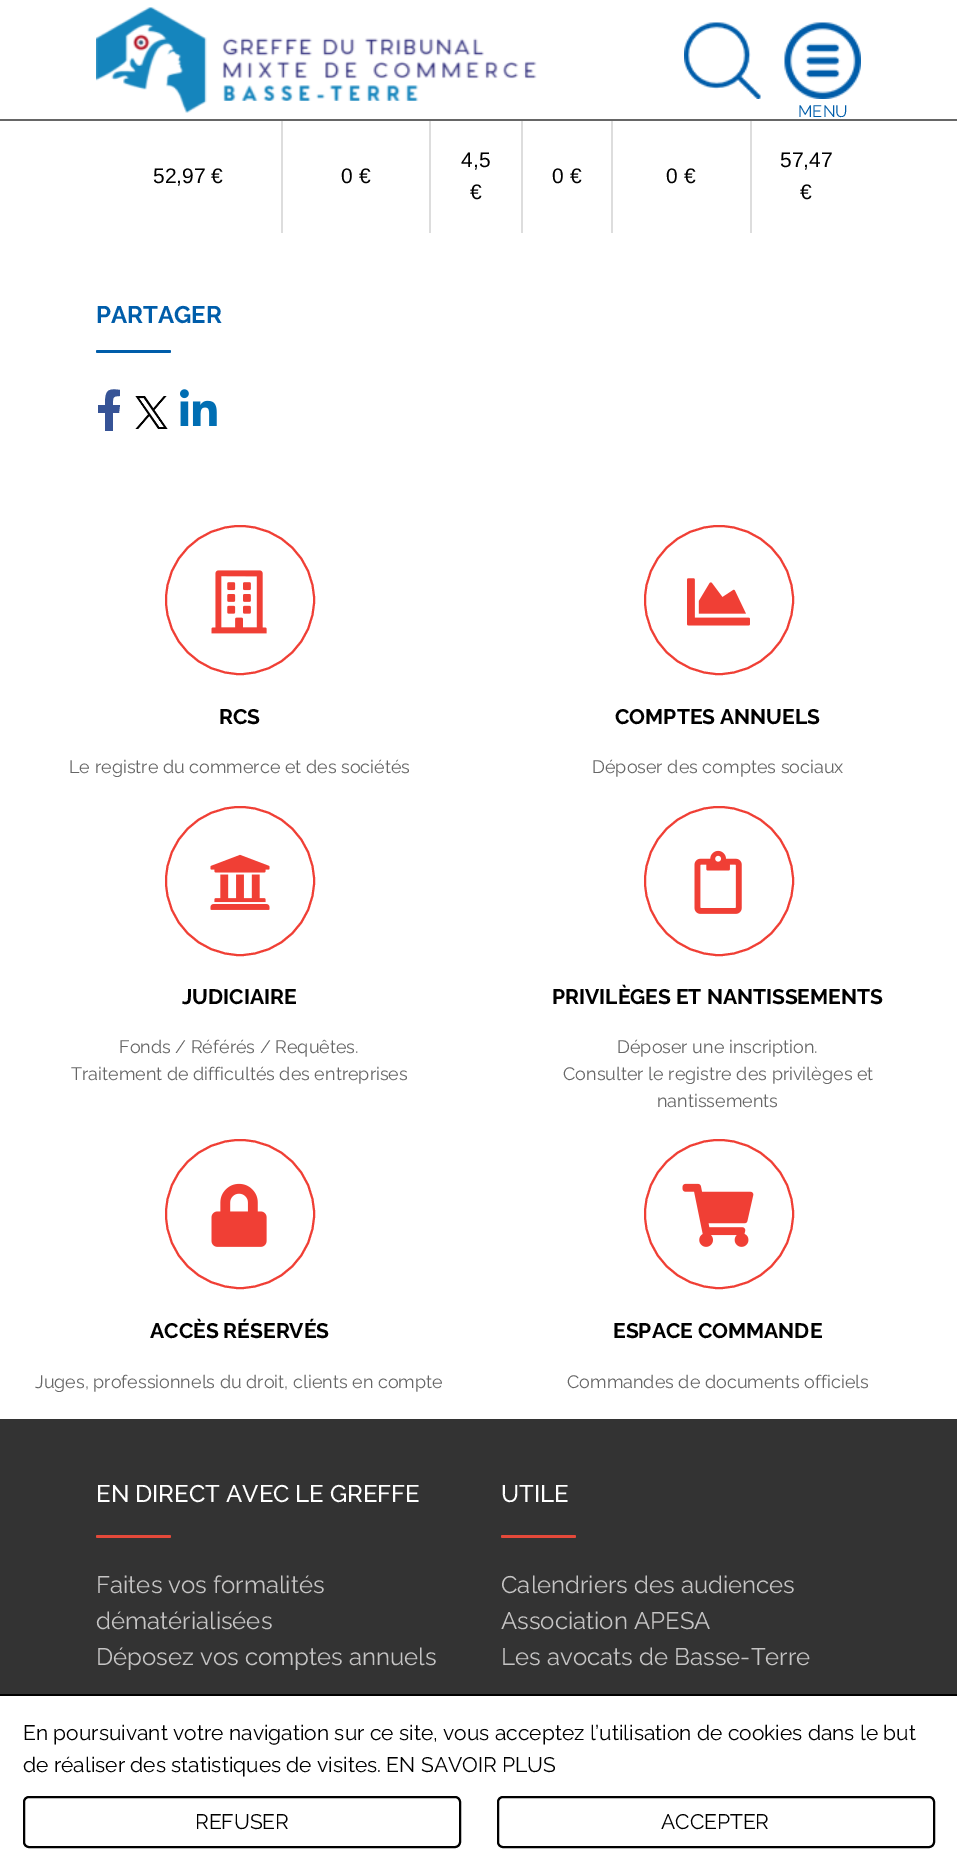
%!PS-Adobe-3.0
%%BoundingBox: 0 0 957 1870
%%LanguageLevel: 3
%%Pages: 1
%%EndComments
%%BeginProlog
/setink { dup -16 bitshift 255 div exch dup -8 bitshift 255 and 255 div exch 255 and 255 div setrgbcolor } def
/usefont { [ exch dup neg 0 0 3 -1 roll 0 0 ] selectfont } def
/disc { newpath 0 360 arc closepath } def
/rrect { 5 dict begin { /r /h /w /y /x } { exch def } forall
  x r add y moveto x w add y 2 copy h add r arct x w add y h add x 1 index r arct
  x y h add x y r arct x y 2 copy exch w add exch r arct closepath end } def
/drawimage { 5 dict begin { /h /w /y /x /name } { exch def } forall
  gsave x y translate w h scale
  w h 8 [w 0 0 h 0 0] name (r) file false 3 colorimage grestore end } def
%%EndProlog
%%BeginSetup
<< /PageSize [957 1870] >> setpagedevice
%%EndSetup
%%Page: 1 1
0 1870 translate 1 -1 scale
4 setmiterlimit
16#FFFFFF setink
0 0 957 1870 rectfill
16#666666 setink
0 119 957 2 rectfill
(img1.raw) 96 7 441 106 drawimage
(img2.raw) 684 22 77 77 drawimage
(img3.raw) 784 22 77 77 drawimage
/Raleway-Regular 16.5 usefont
16#005DAA setink
798 117 moveto (MENU) show
[
    [281 121 2 112 16#DDDDDD]
    [429 121 2 112 16#DDDDDD]
    [521 121 2 112 16#DDDDDD]
    [611 121 2 112 16#DDDDDD]
    [750 121 2 112 16#DDDDDD]
] { aload pop setink rectfill } forall
/LiberationSans-Regular 21 usefont
16#000000 setink
[
    [(52,97 €) 153 183]
    [(0 €) 341 183]
    [(4,5) 461 167]
    [(€) 470 199]
    [(0 €) 552 183]
    [(0 €) 666 183]
    [(57,47) 780 167]
    [(€) 800 199]
] { aload pop moveto show } forall
/Raleway-Bold 24 usefont
16#005DAA setink
96 323 moveto (PARTAGER) show
96 350 75 3 1.5 rrect fill
16#365396 setink
119 413 moveto 113 413 lineto 113 431 lineto 105 431 lineto 105 413 lineto 98 413 lineto 98 405 lineto 105 405 lineto 105 391 107 388 120 390 curveto 120 396 lineto 112 396 113 398 113 405 curveto 120 405 lineto closepath fill
(img4.raw) 135 396 33 33 drawimage
(img5.raw) 180 389 37 37 drawimage
16#F03F35 setink
2 setlinewidth
240 600 74 disc stroke
(img6.raw) 211 570 56 64 drawimage
/Raleway-Bold 21 usefont
16#000000 setink
219 724 moveto (RCS) show
/Raleway-Regular 18 usefont
16#666666 setink
69 773 moveto (Le registre du commerce et des sociétés) show
16#F03F35 setink
719 600 74 disc stroke
(img7.raw) 687 578 63 48 drawimage
/Raleway-Bold 21 usefont
16#000000 setink
615 724 moveto (COMPTES ANNUELS) show
/Raleway-Regular 18 usefont
16#666666 setink
592 773 moveto (Déposer des comptes sociaux) show
16#F03F35 setink
240 881 74 disc stroke
(img8.raw) 210 854 60 56 drawimage
/Raleway-Bold 21 usefont
16#000000 setink
182 1004 moveto (JUDICIAIRE) show
/Raleway-Regular 18 usefont
16#666666 setink
119 1053 moveto (Fonds / Référés / Requêtes.) show
71 1080 moveto (Traitement de difficultés des entreprises) show
16#F03F35 setink
719 881 74 disc stroke
(img9.raw) 694 850 48 64 drawimage
/Raleway-Bold 21 usefont
16#000000 setink
552 1004 moveto (PRIVILÈGES ET NANTISSEMENTS) show
/Raleway-Regular 18 usefont
16#666666 setink
[
    [(Déposer une inscription.) 617 1053]
    [(Consulter le registre des privilèges et) 563 1080]
    [(nantissements) 657 1107]
] { aload pop moveto show } forall
16#F03F35 setink
240 1214 74 disc stroke
(img10.raw) 211 1183 56 64 drawimage
/Raleway-Bold 21 usefont
16#000000 setink
150 1338 moveto (ACCÈS RÉSERVÉS) show
/Raleway-Regular 18 usefont
16#666666 setink
35 1388 moveto (Juges, professionnels du droit, clients en compte) show
16#F03F35 setink
719 1214 74 disc stroke
(img11.raw) 682 1183 72 64 drawimage
/Raleway-Bold 21 usefont
16#000000 setink
613 1338 moveto (ESPACE COMMANDE) show
/Raleway-Regular 18 usefont
16#666666 setink
567 1388 moveto (Commandes de documents officiels) show
16#333333 setink
0 1419 957 275 rectfill
/Raleway-Medium 24 usefont
16#FFFFFF setink
96 1502 moveto (EN DIRECT AVEC LE GREFFE) show
16#E5493A setink
96 1535 75 3 1.5 rrect fill
/Raleway-Regular 24 usefont
16#C5C4C4 setink
[
    [(Faites vos formalités) 96 1593]
    [(dématérialisées) 96 1629]
    [(Déposez vos comptes annuels) 96 1665]
] { aload pop moveto show } forall
/Raleway-Medium 24 usefont
16#FFFFFF setink
501 1502 moveto (UTILE) show
16#E5493A setink
501 1535 75 3 1.5 rrect fill
/Raleway-Regular 24 usefont
16#C5C4C4 setink
[
    [(Calendriers des audiences) 501 1593]
    [(Association APESA) 501 1629]
    [(Les avocats de Basse-Terre) 501 1665]
] { aload pop moveto show } forall
16#000000 setink
0 1694 957 2 rectfill
/Raleway-Regular 21 usefont
23 1740 moveto (En poursuivant votre navigation sur ce site, vous acceptez l’utilisation de cookies dans le but) show
23 1772 moveto (de réaliser des statistiques de visites. EN SAVOIR PLUS) show
24 1797 436 50 5 rrect stroke
195 1829 moveto (REFUSER) show
498 1797 436 50 5 rrect stroke
661 1829 moveto (ACCEPTER) show
showpage
%%EOF
